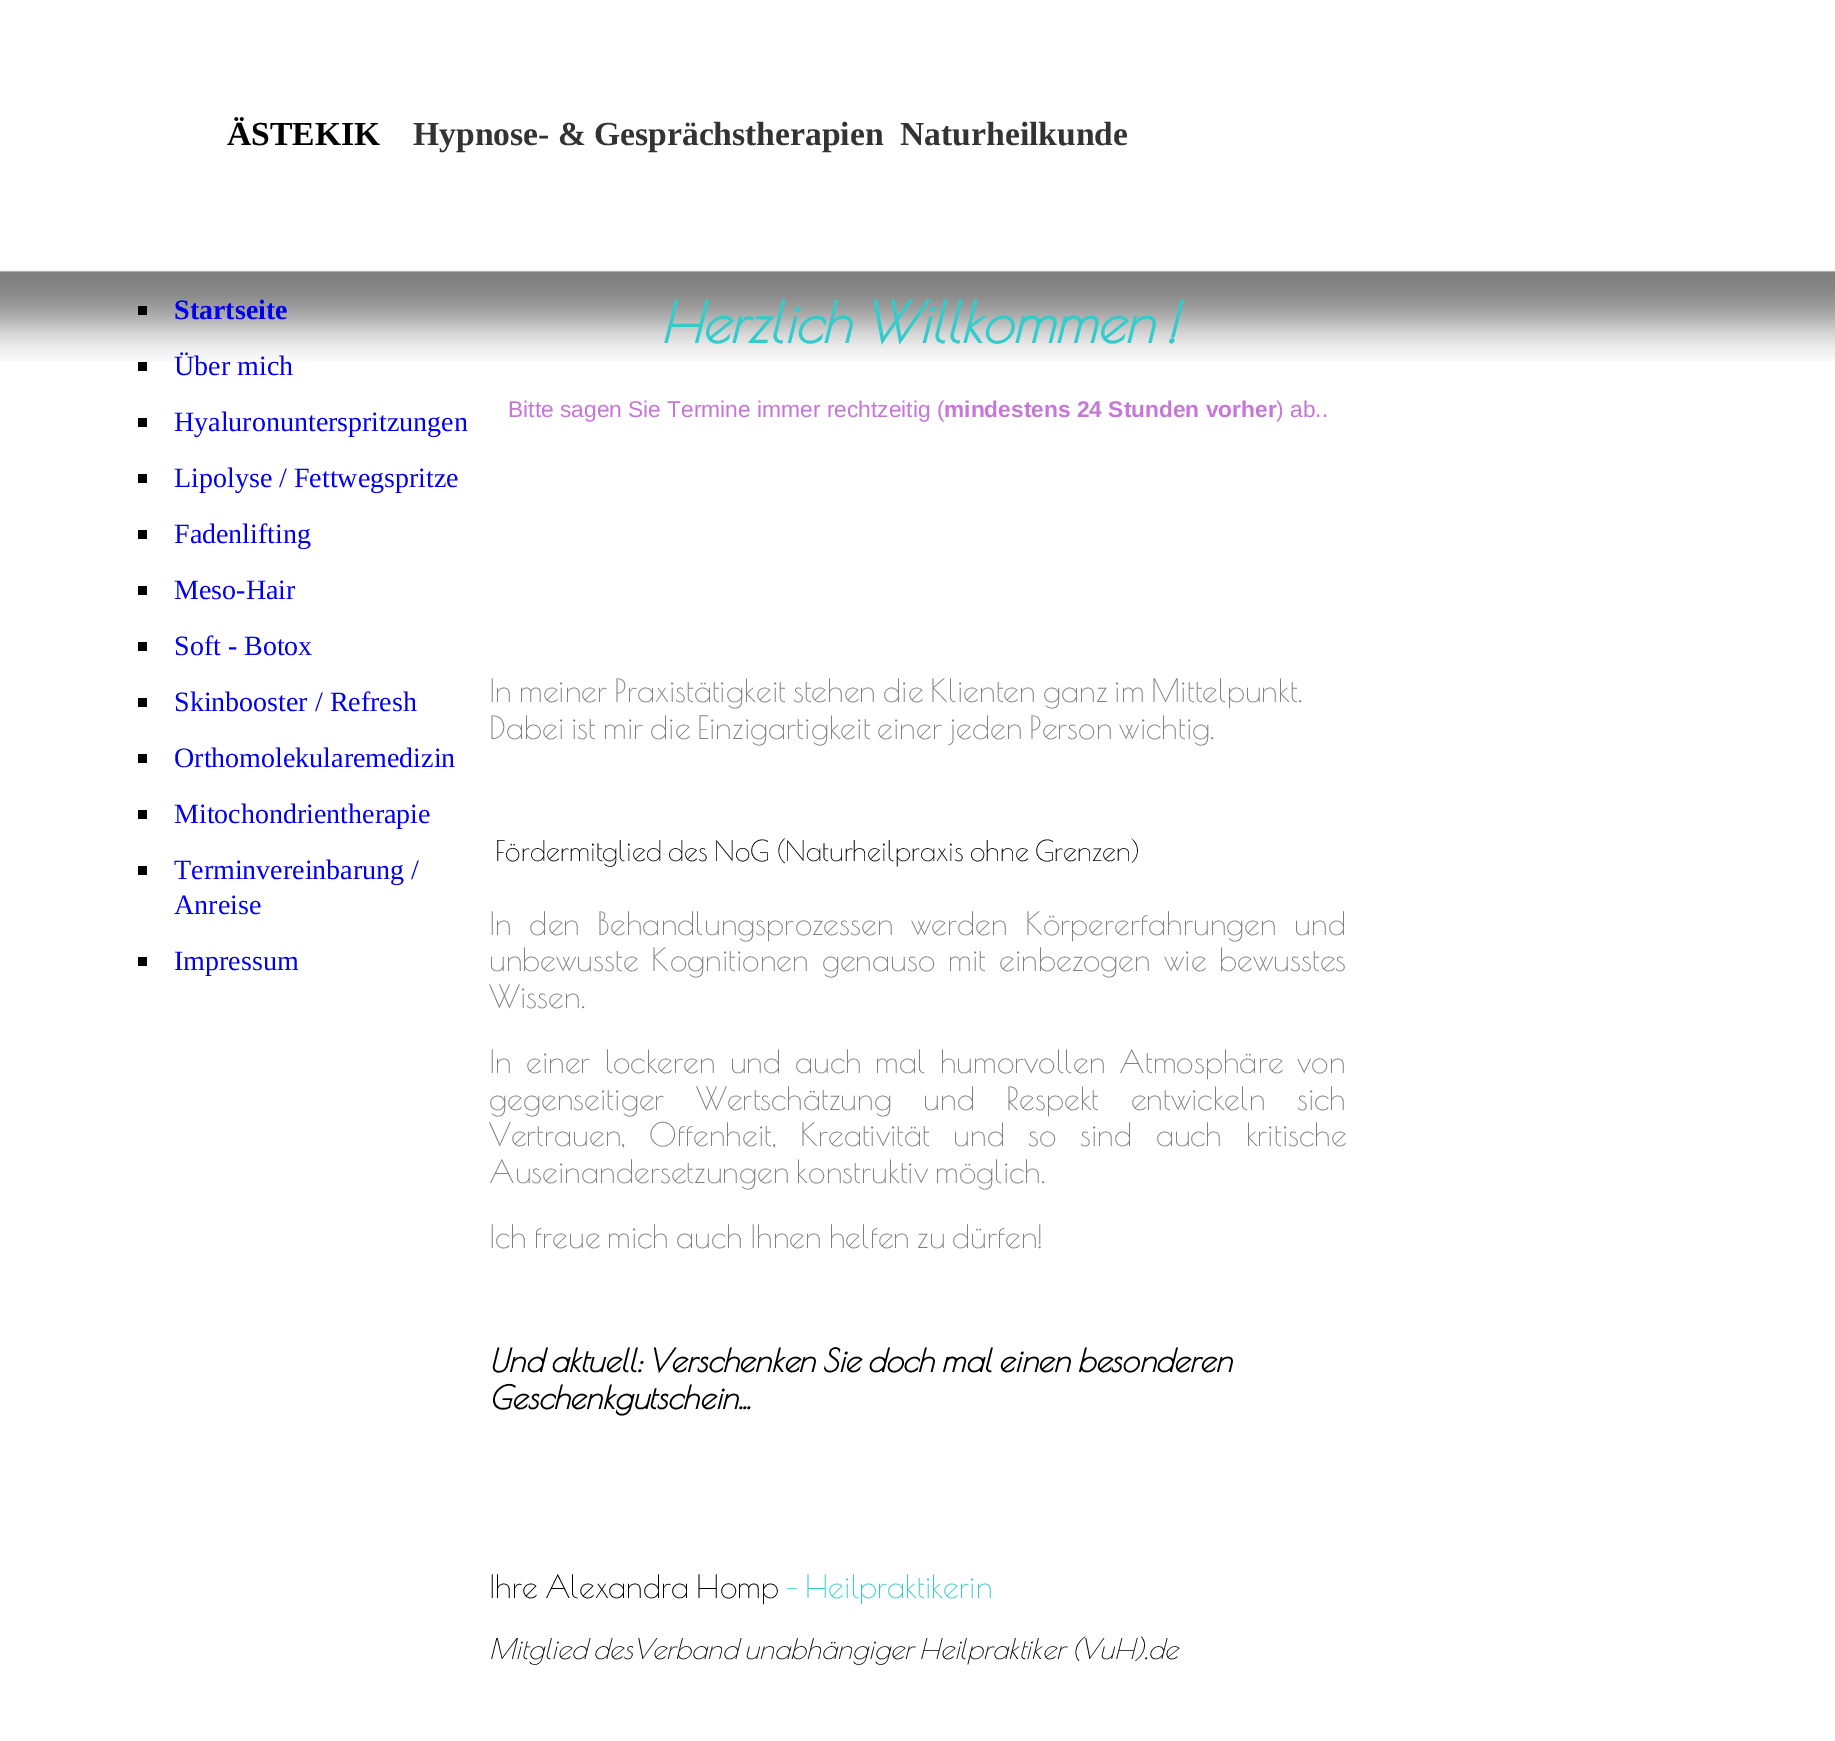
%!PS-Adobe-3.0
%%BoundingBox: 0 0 1835 1741
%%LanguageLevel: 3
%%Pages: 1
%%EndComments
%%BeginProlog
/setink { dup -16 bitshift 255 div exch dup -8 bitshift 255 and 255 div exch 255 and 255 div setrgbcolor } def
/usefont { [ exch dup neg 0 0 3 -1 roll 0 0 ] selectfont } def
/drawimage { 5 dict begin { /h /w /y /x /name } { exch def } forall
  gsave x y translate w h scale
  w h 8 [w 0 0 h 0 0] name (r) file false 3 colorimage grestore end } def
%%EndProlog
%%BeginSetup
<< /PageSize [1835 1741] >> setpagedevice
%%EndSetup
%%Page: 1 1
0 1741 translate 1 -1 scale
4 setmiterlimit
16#FFFFFF setink
0 0 1835 1741 rectfill
(img1.raw) 0 270 1835 91 drawimage
/LiberationSerif-Bold 33.6 usefont
16#000000 setink
227 145 moveto (ÄSTEKIK) show
16#333333 setink
413 145 moveto (Hypnose- & Gesprächstherapien  Naturheilkunde) show
16#000000 setink
138 306 9 9 rectfill
/LiberationSerif-Bold 28 usefont
16#0000EE setink
174 319 moveto (Startseite) show
16#000000 setink
138 362 9 9 rectfill
/LiberationSerif-Regular 28 usefont
16#0000EE setink
174 375 moveto (Über mich) show
16#000000 setink
138 418 9 9 rectfill
16#0000EE setink
174 431 moveto (Hyaluronunterspritzungen) show
16#000000 setink
138 474 9 9 rectfill
16#0000EE setink
174 487 moveto (Lipolyse / Fettwegspritze) show
16#000000 setink
138 530 9 9 rectfill
16#0000EE setink
174 543 moveto (Fadenlifting) show
16#000000 setink
138 586 9 9 rectfill
16#0000EE setink
174 599 moveto (Meso-Hair) show
16#000000 setink
138 642 9 9 rectfill
16#0000EE setink
174 655 moveto (Soft - Botox) show
16#000000 setink
138 698 9 9 rectfill
16#0000EE setink
174 711 moveto (Skinbooster / Refresh) show
16#000000 setink
138 754 9 9 rectfill
16#0000EE setink
174 767 moveto (Orthomolekularemedizin) show
16#000000 setink
138 810 9 9 rectfill
16#0000EE setink
174 823 moveto (Mitochondrientherapie) show
16#000000 setink
138 866 9 9 rectfill
16#0000EE setink
174 879 moveto (Terminvereinbarung /) show
174 914 moveto (Anreise) show
16#000000 setink
138 957 9 9 rectfill
16#0000EE setink
174 970 moveto (Impressum) show
/PoiretOne-BoldItalic 56 usefont
16#33CCCC setink
660 343 moveto (Herzlich Willkommen !) show
/LiberationSans-Regular 22.75 usefont
16#C677D7 setink
508 417 moveto (Bitte sagen Sie Termine immer rechtzeitig \() show
/LiberationSans-Bold 22.75 usefont
944 417 moveto (mindestens 24 Stunden vorher) show
/LiberationSans-Regular 22.75 usefont
1276 417 moveto (\) ab..) show
/PoiretOne-Regular 31.5 usefont
16#808080 setink
489 702 moveto (In meiner Praxistätigkeit stehen die Klienten ganz im Mittelpunkt.) show
489 739 moveto (Dabei ist mir die Einzigartigkeit einer jeden Person wichtig.) show
/PoiretOne-Regular 28 usefont
16#000000 setink
495 861 moveto (Fördermitglied des NoG \(Naturheilpraxis ohne Grenzen\)) show
/PoiretOne-Regular 31.5 usefont
16#808080 setink
489 935 moveto 10.5 0 32 (In den Behandlungsprozessen werden Körpererfahrungen und) widthshow
489 971 moveto 6 0 32 (unbewusste Kognitionen genauso mit einbezogen wie bewusstes) widthshow
489 1008 moveto (Wissen.) show
489 1073 moveto 7 0 32 (In einer lockeren und auch mal humorvollen Atmosphäre von) widthshow
489 1110 moveto 24.5 0 32 (gegenseitiger Wertschätzung und Respekt entwickeln sich) widthshow
489 1146 moveto 16.5 0 32 (Vertrauen, Offenheit, Kreativität und so sind auch kritische) widthshow
489 1183 moveto (Auseinandersetzungen konstruktiv möglich.) show
489 1248 moveto (Ich freue mich auch Ihnen helfen zu dürfen!) show
/PoiretOne-BoldItalic 31.5 usefont
16#000000 setink
489 1372 moveto (Und aktuell: Verschenken Sie doch mal einen besonderen) show
489 1409 moveto (Geschenkgutschein...) show
/PoiretOne-Regular 31.5 usefont
489 1598 moveto (Ihre Alexandra Homp) show
16#33CCCC setink
786 1598 moveto (- Heilpraktikerin) show
/PoiretOne-Italic 28 usefont
16#000000 setink
489 1659 moveto (Mitglied desVerband unabhängiger Heilpraktiker \(VuH\).de) show
showpage
%%EOF
